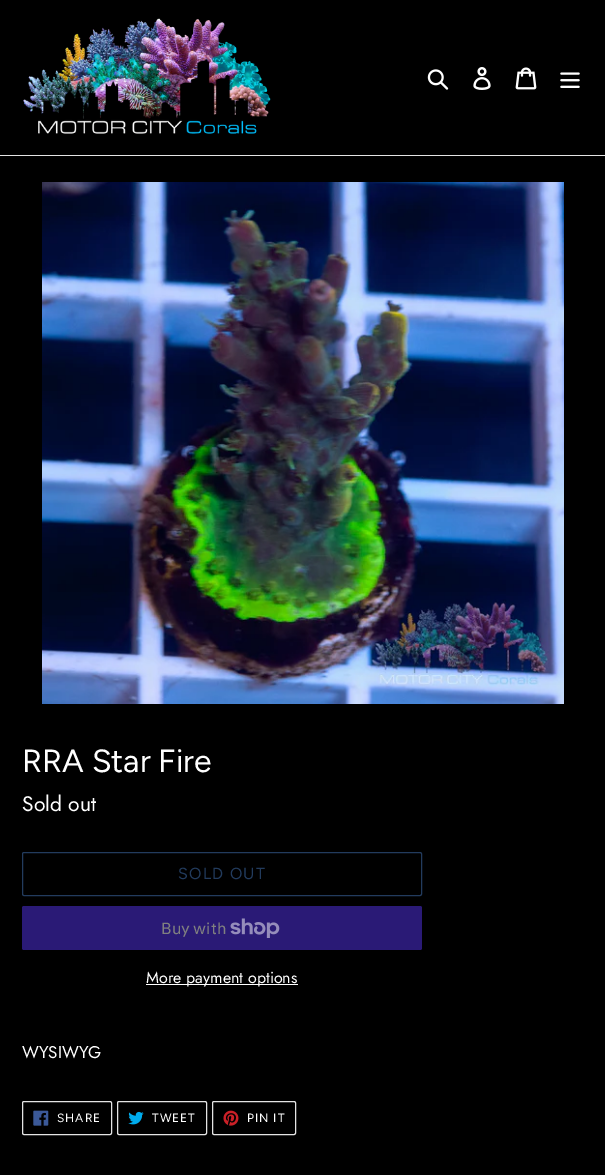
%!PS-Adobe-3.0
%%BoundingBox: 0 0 605 1175
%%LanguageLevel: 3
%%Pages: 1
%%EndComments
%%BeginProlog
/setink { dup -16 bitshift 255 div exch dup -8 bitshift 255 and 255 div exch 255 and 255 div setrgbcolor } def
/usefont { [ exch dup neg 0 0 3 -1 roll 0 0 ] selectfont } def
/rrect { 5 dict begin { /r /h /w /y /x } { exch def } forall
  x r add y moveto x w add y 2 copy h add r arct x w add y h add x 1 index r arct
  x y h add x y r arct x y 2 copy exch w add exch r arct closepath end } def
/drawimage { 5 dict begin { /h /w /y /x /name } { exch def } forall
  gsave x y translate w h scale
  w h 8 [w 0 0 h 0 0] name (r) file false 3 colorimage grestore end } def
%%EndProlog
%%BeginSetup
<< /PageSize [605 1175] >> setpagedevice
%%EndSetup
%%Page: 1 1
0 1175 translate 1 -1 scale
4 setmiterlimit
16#000000 setink
0 0 605 1175 rectfill
16#E4E4E4 setink
0 155 605 1 rectfill
(img1.raw) 23 18 248 116 drawimage
(img2.raw) 427 69 22 21 drawimage
(img3.raw) 473 67 18 23 drawimage
(img4.raw) 515 67 22 23 drawimage
(img5.raw) 560 72 20 16 drawimage
(img6.raw) 42 182 522 522 drawimage
/Figtree-Regular 32 usefont
16#FFFFFF setink
22 772 moveto (RRA Star Fire) show
/Jost-Regular 21 usefont
22 811 moveto (Sold out) show
16#223B5D setink
22.5 852.5 399 43 1.5 rrect stroke
/Figtree-Regular 16 usefont
178 879 moveto 1.25 0 (SOLD OUT) ashow
16#2A1A76 setink
22 906 400 44 2 rrect fill
/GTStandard-Regular 16 usefont
16#808080 setink
161 934 moveto (Buy with) show
(img7.raw) 230 918 50 20 drawimage
16#FFFFFF setink
146 984 152 1 rectfill
/Jost-Regular 16 usefont
146 983 moveto (More payment options) show
/Jost-Regular 17 usefont
22 1058 moveto (WYSIWYG) show
16#E4E4E4 setink
22.5 1101.5 89 33 1.5 rrect stroke
(img8.raw) 33 1110 16 16 drawimage
/Figtree-Regular 12 usefont
16#FFFFFF setink
57 1122 moveto 1 0 (SHARE) ashow
16#E4E4E4 setink
117.5 1101.5 89 33 1.5 rrect stroke
(img9.raw) 128 1111 16 14 drawimage
16#FFFFFF setink
152 1122 moveto 1 0 (TWEET) ashow
16#E4E4E4 setink
212.5 1101.5 83 33 1.5 rrect stroke
(img10.raw) 223 1110 16 16 drawimage
16#FFFFFF setink
247 1122 moveto 1 0 (PIN IT) ashow
showpage
%%EOF
